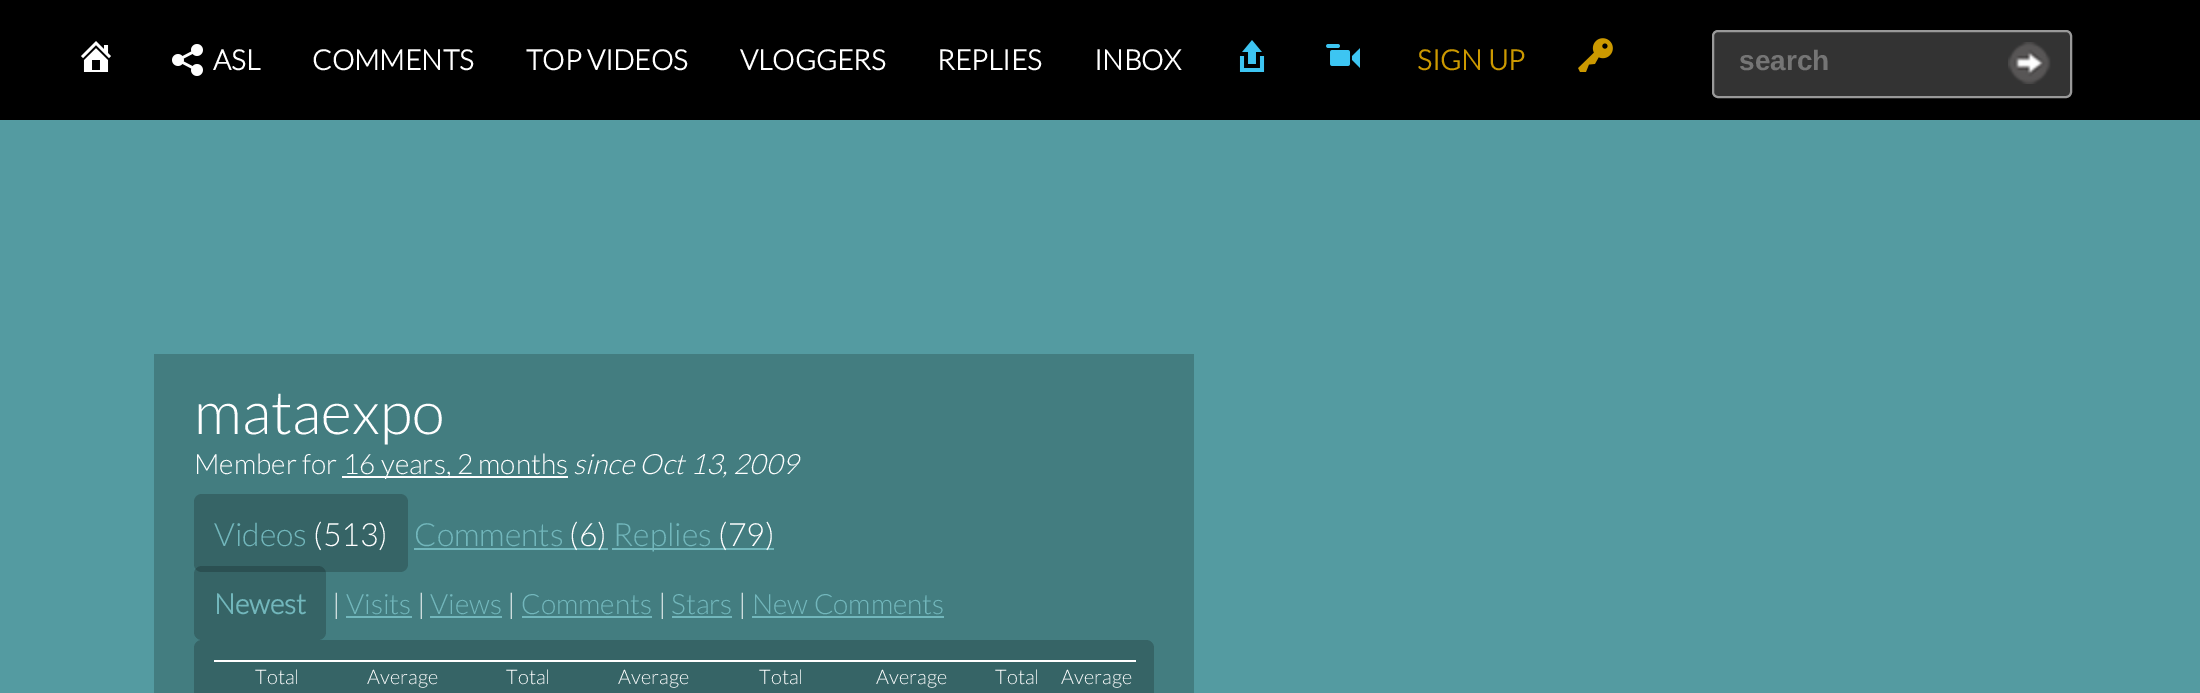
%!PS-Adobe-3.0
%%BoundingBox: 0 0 2200 693
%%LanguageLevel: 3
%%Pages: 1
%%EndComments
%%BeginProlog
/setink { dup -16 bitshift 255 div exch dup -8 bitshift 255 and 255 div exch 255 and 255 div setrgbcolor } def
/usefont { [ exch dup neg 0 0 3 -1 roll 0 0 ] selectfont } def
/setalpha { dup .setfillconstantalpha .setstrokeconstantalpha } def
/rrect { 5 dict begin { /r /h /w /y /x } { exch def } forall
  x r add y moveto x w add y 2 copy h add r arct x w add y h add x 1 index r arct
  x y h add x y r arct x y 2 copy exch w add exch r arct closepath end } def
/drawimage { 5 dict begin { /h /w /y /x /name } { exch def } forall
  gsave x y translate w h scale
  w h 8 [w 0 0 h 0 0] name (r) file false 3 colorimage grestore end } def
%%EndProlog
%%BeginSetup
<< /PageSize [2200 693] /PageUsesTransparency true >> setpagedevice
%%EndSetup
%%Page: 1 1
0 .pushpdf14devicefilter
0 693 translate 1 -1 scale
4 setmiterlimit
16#549BA1 setink
0 0 2200 693 rectfill
16#000000 setink
0 0 2200 120 rectfill
(img1.raw) 81 41 30 31 drawimage
(img2.raw) 172 44 31 32 drawimage
/Lato-Bold 28 usefont
16#FFFFFF setink
[
    [(ASL) 213 70]
    [(COMMENTS) 312 70]
    [(TOP VIDEOS) 526 70]
    [(VLOGGERS) 740 70]
    [(REPLIES) 937 70]
    [(INBOX) 1094 70]
] { aload pop moveto show } forall
(img3.raw) 1239 40 26 32 drawimage
(img4.raw) 1326 44 34 24 drawimage
16#CC9900 setink
1417 70 moveto (SIGN UP) show
(img5.raw) 1578 38 35 34 drawimage
16#333333 setink
1713 31 358 66 5 rrect gsave fill grestore
16#999999 setink
2 setlinewidth
stroke
/LiberationSans-Bold 28 usefont
16#757575 setink
1739 70 moveto (search) show
(img6.raw) 2008 42 43 42 drawimage
16#437D80 setink
154 354 1040 339 rectfill
/Lato-Light 60 usefont
16#FFFFFF setink
194 434 moveto (mataexpo) show
/Lato-Light 28 usefont
194 474 moveto (Member for) show
342 476 226 2 rectfill
343 474 moveto (16 years, 2 months) show
/Lato-LightItalic 28 usefont
573 474 moveto (since Oct 13, 2009) show
16#366466 setink
202 494 moveto 314 494 lineto 314 572 lineto 202 572 lineto 197.5 572 194 568.5 194 564 curveto 194 502 lineto 194 497.5 197.5 494 202 494 curveto closepath fill
/Lato-Light 32 usefont
16#72B7BC setink
214 546 moveto (Videos) show
16#366466 setink
314 494 moveto 400 494 lineto 404.5 494 408 497.5 408 502 curveto 408 564 lineto 408 568.5 404.5 572 400 572 curveto 314 572 lineto closepath fill
16#FFFFFF setink
313 546 moveto (\(513\)) show
16#72B7BC setink
414 546 moveto (Comments) show
414 548 194 2 rectfill
16#FFFFFF setink
569 546 moveto (\(6\)) show
16#72B7BC setink
612 548 162 2 rectfill
613 546 moveto (Replies) show
16#FFFFFF setink
718 546 moveto (\(79\)) show
0.2 setalpha
16#000000 setink
194 566 132 74 8 rrect fill
/Lato-Bold 28 usefont
1 setalpha
16#72B7BC setink
214 614 moveto (Newest) show
/Lato-Light 28 usefont
16#FFFFFF setink
332 614 moveto (|) show
16#72B7BC setink
346 614 moveto (Visits) show
346 616 66 2 rectfill
16#FFFFFF setink
417 614 moveto (|) show
16#72B7BC setink
430 614 moveto (Views) show
430 616 72 2 rectfill
16#FFFFFF setink
507 614 moveto (|) show
16#72B7BC setink
521 614 moveto (Comments) show
522 616 130 2 rectfill
16#FFFFFF setink
658 614 moveto (|) show
16#72B7BC setink
671 614 moveto (Stars) show
672 616 60 2 rectfill
16#FFFFFF setink
738 614 moveto (|) show
16#72B7BC setink
752 614 moveto (New Comments) show
752 616 192 2 rectfill
16#366466 setink
194 640 960 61 8 rrect fill
16#FFFFFF setink
214 660 922 2 rectfill
/Lato-Light 20 usefont
[
    [(Total) 255 684]
    [(Average) 367 684]
    [(Total) 506 684]
    [(Average) 618 684]
    [(Total) 759 684]
    [(Average) 876 684]
    [(Total) 995 684]
    [(Average) 1061 684]
] { aload pop moveto show } forall
.poppdf14devicefilter showpage
%%EOF
